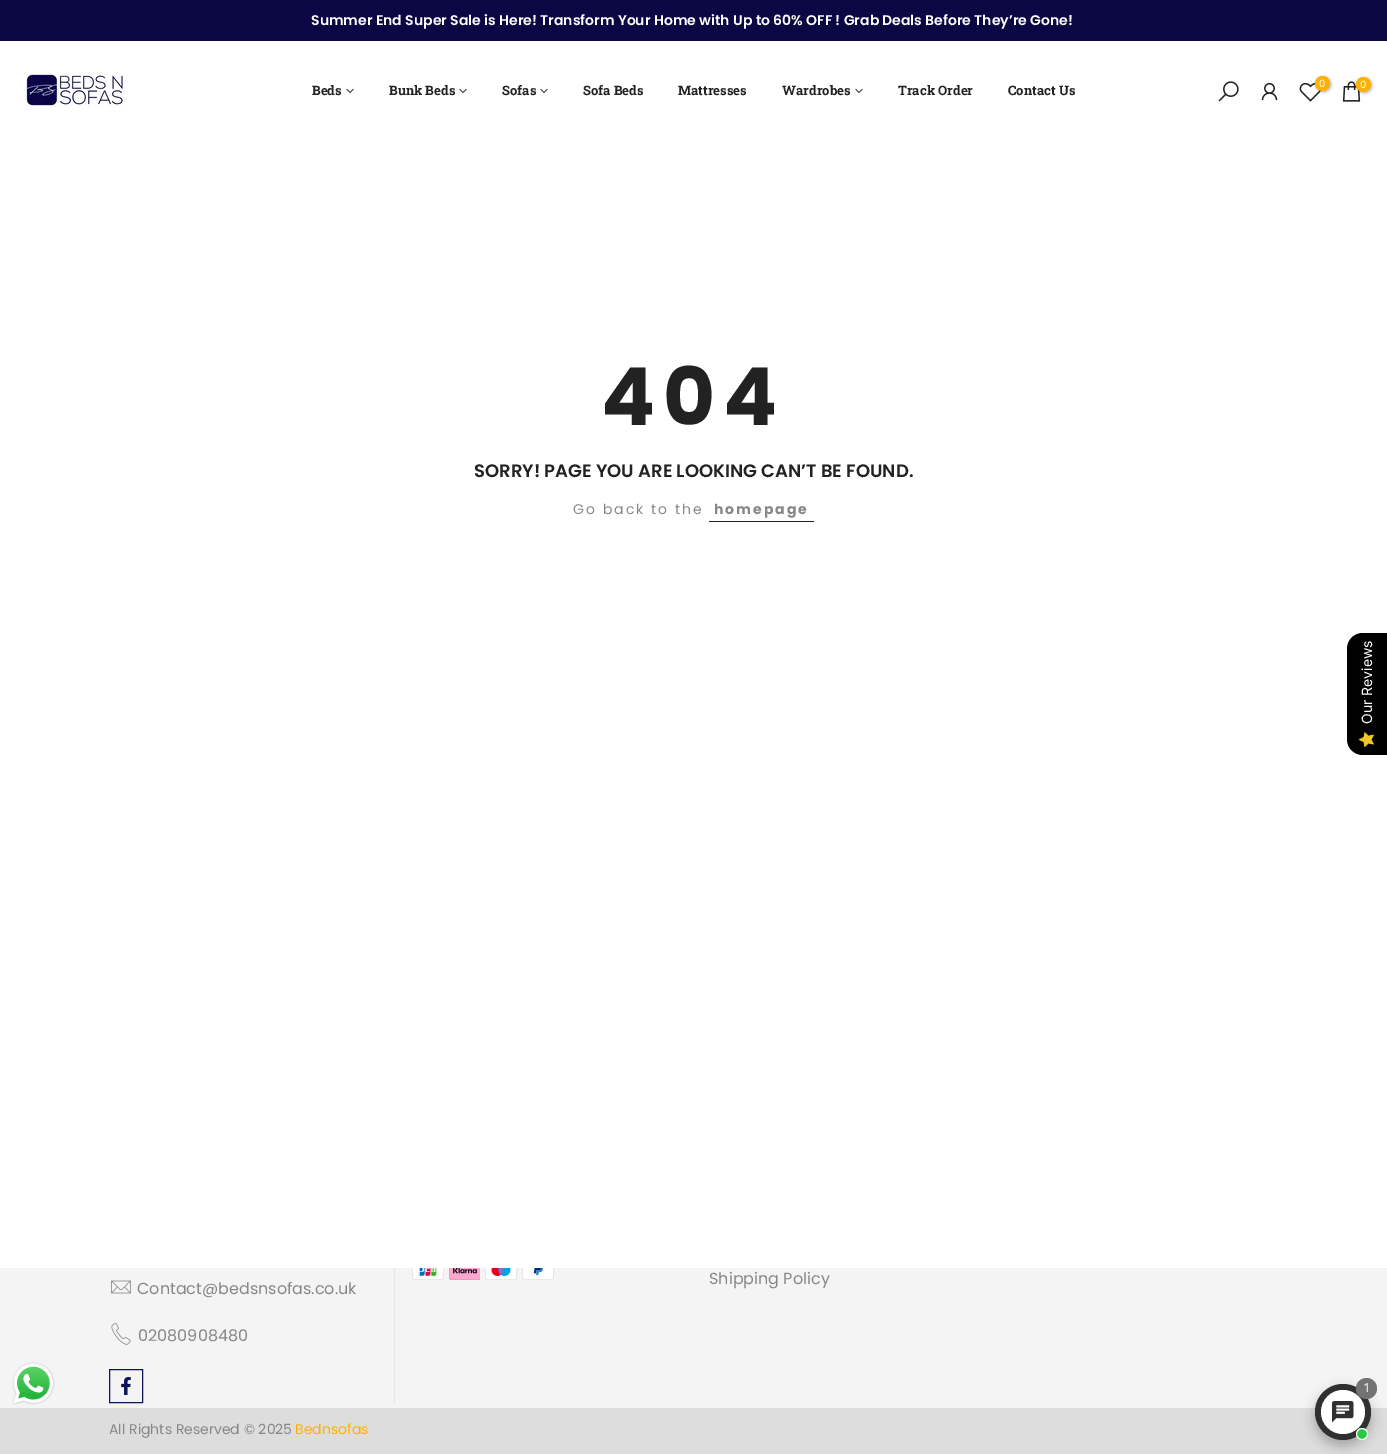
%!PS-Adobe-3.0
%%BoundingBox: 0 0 1387 1454
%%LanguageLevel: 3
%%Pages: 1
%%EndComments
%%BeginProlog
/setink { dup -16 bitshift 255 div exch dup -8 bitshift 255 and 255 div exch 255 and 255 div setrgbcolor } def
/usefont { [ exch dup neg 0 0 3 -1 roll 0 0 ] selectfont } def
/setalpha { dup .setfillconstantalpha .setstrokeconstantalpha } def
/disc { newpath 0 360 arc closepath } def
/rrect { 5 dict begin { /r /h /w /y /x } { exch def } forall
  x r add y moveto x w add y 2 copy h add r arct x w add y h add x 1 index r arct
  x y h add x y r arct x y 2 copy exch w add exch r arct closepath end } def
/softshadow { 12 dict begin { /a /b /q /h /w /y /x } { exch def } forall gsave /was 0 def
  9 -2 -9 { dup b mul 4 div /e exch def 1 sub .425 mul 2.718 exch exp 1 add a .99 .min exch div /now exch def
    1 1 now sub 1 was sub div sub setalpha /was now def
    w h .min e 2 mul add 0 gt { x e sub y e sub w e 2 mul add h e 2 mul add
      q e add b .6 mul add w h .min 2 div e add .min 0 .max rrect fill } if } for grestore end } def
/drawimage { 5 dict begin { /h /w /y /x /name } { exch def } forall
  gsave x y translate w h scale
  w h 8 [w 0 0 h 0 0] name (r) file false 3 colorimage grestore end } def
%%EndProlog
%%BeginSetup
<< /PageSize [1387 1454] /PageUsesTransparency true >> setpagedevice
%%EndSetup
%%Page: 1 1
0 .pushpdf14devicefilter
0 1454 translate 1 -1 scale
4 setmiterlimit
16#FFFFFF setink
0 0 1387 1454 rectfill
16#0B0644 setink
0 0 1387 41 rectfill
/Poppins-SemiBold 14 usefont
16#FFFFFF setink
311 25 moveto (Summer End Super Sale is Here! Transform Your Home with Up to 60% OFF ! Grab Deals Before They’re Gone!) show
(img1.raw) 25 73 100 34 drawimage
/RobotoSlab-Bold 13 usefont
16#222222 setink
312 95 moveto (Beds) show
16#4E4E4E setink
0.8 setlinewidth
2 setlinecap
353 89.5 moveto 350 92.5 lineto 347 89.5 lineto stroke
16#222222 setink
389 95 moveto (Bunk Beds) show
16#4E4E4E setink
466 89.5 moveto 463 92.5 lineto 460 89.5 lineto stroke
16#222222 setink
502 95 moveto (Sofas) show
16#4E4E4E setink
547 89.5 moveto 544 92.5 lineto 541 89.5 lineto stroke
16#222222 setink
[
    [(Sofa Beds) 583 95]
    [(Mattresses) 678 95]
    [(Wardrobes) 782 95]
] { aload pop moveto show } forall
16#4E4E4E setink
862 89.5 moveto 859 92.5 lineto 856 89.5 lineto stroke
16#222222 setink
898 95 moveto (Track Order) show
1008 95 moveto (Contact Us) show
(img2.raw) 1218 81 21 21 drawimage
(img3.raw) 1261 82 17 19 drawimage
(img4.raw) 1299 82 23 20 drawimage
16#000000 setink
1316 77 15 15 7.5 1.5 0.3 softshadow
16#FFB100 setink
1322.5 83.5 7.5 disc fill
/Poppins-Regular 10 usefont
16#FFFFFF setink
1319 87 moveto (0) show
(img5.raw) 1342 81 19 21 drawimage
16#000000 setink
1357 78 15 15 7.5 1.5 0.3 softshadow
16#FFB100 setink
1363.5 84.5 7.5 disc fill
16#FFFFFF setink
1360 88 moveto (0) show
/Poppins-Bold 80 usefont
16#222222 setink
601 425 moveto 8 0 (404) ashow
/Poppins-SemiBold 18 usefont
474 477 moveto (SORRY! PAGE YOU ARE LOOKING CAN’T BE FOUND.) show
/Poppins-Regular 14 usefont
16#878787 setink
573 514 moveto 2 0 (Go back to the) ashow
/Poppins-Bold 14 usefont
714 514 moveto 2 0 (homepage) ashow
16#222222 setink
709 521 105 1 rectfill
16#F4F4F4 setink
0 1268 1387 140 rectfill
(img6.raw) 111 1280 20 14 drawimage
/Poppins-Regular 16 usefont
16#878787 setink
137 1294 moveto (Contact@bedsnsofas.co.uk) show
(img7.raw) 111 1323 20 22 drawimage
138 1341 moveto (02080908480) show
16#0E1756 setink
1 setlinewidth
0 setlinecap
109.5 1369.5 33 33 rectstroke
(img8.raw) 121 1377 10 18 drawimage
16#E6E6E6 setink
394 1268 1 135 rectfill
(img9.raw) 412 1268 32 12 drawimage
(img10.raw) 449 1268 31 12 drawimage
(img11.raw) 485 1268 32 12 drawimage
(img12.raw) 522 1268 32 12 drawimage
16#878787 setink
709 1284 moveto (Shipping Policy) show
16#DDDDDD setink
0 1408 1387 46 rectfill
/Poppins-Regular 14 usefont
16#878787 setink
109 1434 moveto (All Rights Reserved © 2025) show
16#FFB100 setink
295 1434 moveto (Bednsofas) show
16#000000 setink
1347 739 moveto 1347 649 lineto 1347 640 1354 633 1363 633 curveto 1387 633 lineto 1387 755 lineto 1363 755 lineto 1354 755 1347 748 1347 739 curveto closepath fill
/Inter-Regular 14 usefont
16#FFFFFF setink
gsave 1372 724 translate -90 rotate 0 0 moveto (Our Reviews) show grestore
(img13.raw) 1358 732 16 16 drawimage
(img14.raw) 12 1362 43 43 drawimage
16#000000 setink
1315 1390 56 56 28 6 0.25 softshadow
16#303030 setink
1343 1412 28 disc fill
16#FFFFFF setink
1343 1412 22 disc fill
(img15.raw) 1332 1401 22 22 drawimage
16#27CA40 setink
1362 1434 5.5 disc gsave fill grestore
16#FFFFFF setink
stroke
16#737373 setink
1366.5 1388.5 10.5 disc fill
/Inter-Regular 12 usefont
16#FFFFFF setink
1364 1392 moveto (1) show
.poppdf14devicefilter showpage
%%EOF
